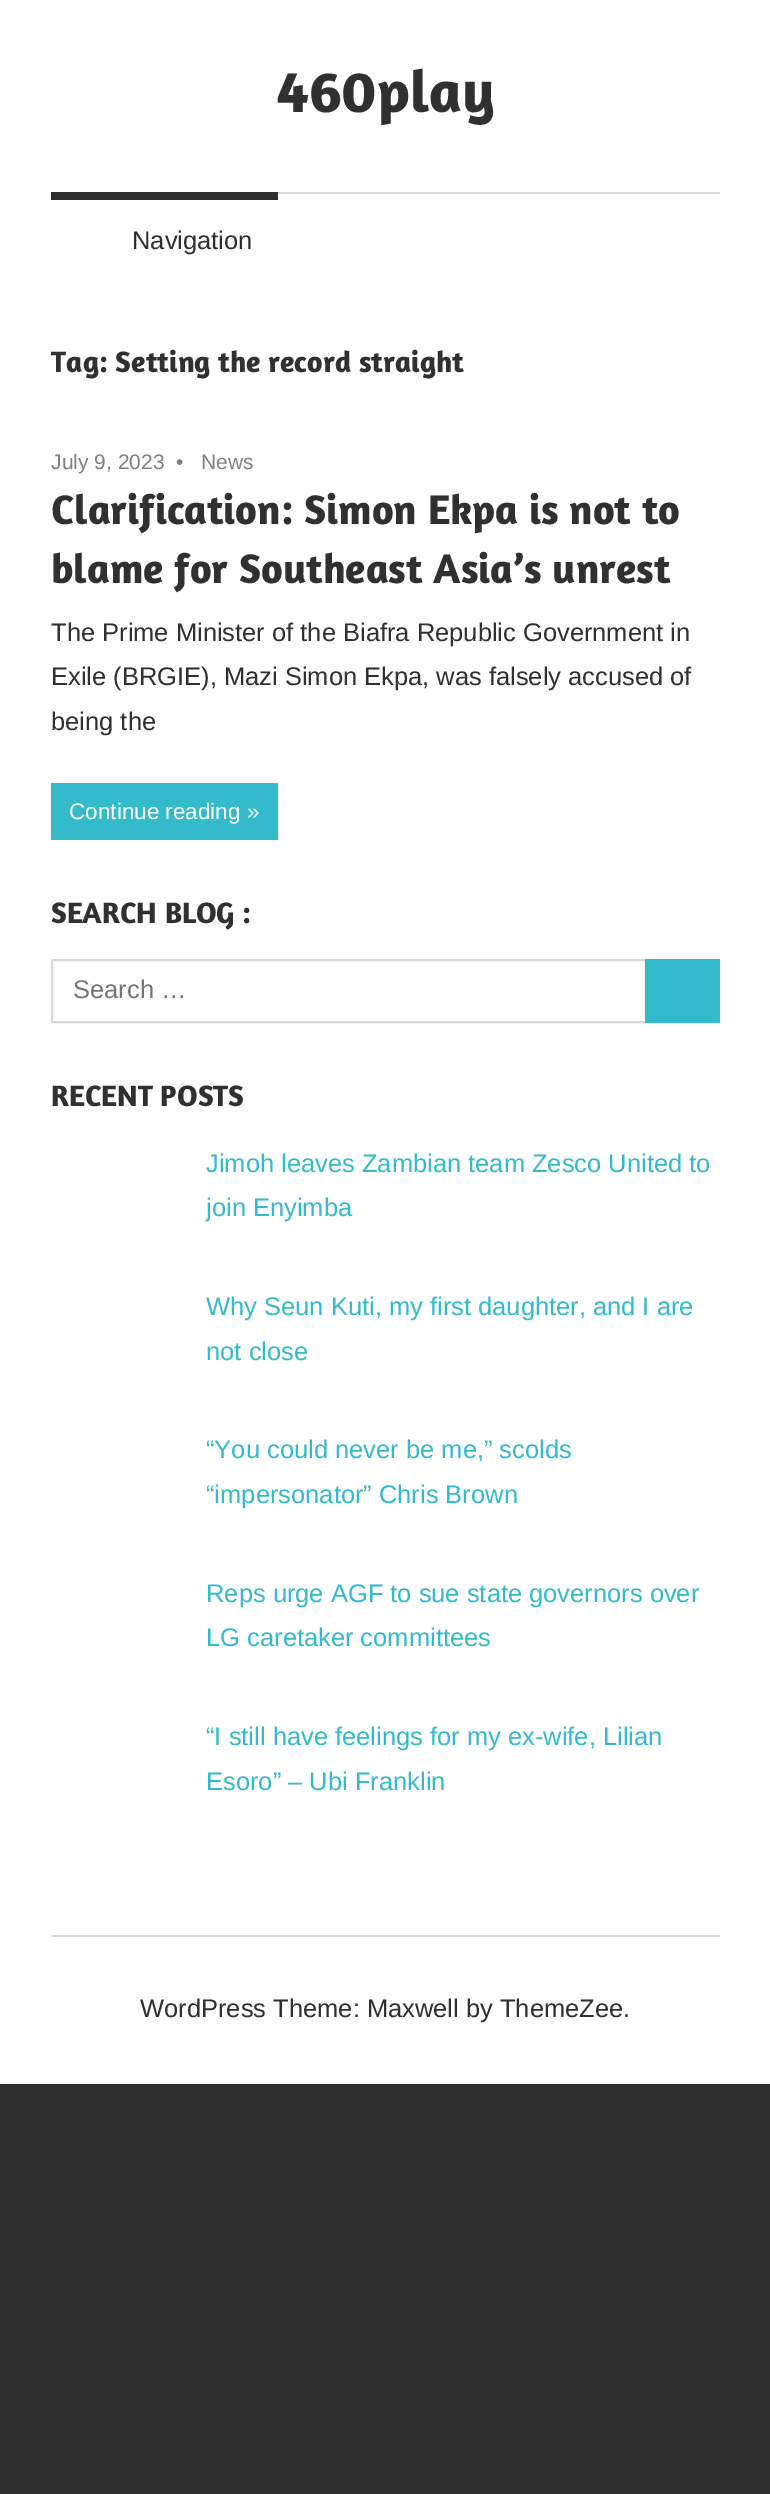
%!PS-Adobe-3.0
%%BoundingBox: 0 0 770 2494
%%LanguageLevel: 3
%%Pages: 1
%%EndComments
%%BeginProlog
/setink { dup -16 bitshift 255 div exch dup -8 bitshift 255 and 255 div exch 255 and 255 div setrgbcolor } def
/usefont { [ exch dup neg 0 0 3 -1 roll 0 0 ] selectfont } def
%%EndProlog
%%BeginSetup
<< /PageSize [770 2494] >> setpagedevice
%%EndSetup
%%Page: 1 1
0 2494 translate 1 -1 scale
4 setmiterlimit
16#303030 setink
0 0 770 2494 rectfill
16#FFFFFF setink
0 0 770 2084 rectfill
/Amaranth-Bold 60 usefont
16#303030 setink
277 112 moveto (460play) show
16#D9D9D9 setink
278 192 442 2 rectfill
16#303030 setink
51 192 227 8 rectfill
/LiberationSans-Regular 25.5 usefont
132 249 moveto (Navigation) show
/Amaranth-Bold 30 usefont
51 372 moveto (Tag: Setting the record straight) show
/LiberationSans-Regular 21 usefont
16#808080 setink
[
    [(July 9, 2023) 51 469]
    [(•) 176 469]
    [(News) 201 469]
] { aload pop moveto show } forall
/Amaranth-Bold 42 usefont
16#303030 setink
51 524 moveto (Clarification: Simon Ekpa is not to) show
51 583 moveto (blame for Southeast Asia’s unrest) show
/LiberationSans-Regular 25.5 usefont
[
    [(The Prime Minister of the Biafra Republic Government in) 51 641]
    [(Exile \(BRGIE\), Mazi Simon Ekpa, was falsely accused of) 51 685]
    [(being the) 51 730]
] { aload pop moveto show } forall
16#33BBCC setink
51 783 227 57 rectfill
/LiberationSans-Regular 22.5 usefont
16#FFFFFF setink
69 819 moveto (Continue reading ») show
/Amaranth-Bold 30 usefont
16#303030 setink
51 923 moveto (SEARCH BLOG :) show
16#D9D9D9 setink
2 setlinewidth
52 960 594 62 rectstroke
/LiberationSans-Regular 25.5 usefont
16#757575 setink
73 998 moveto (Search …) show
16#33BBCC setink
645 959 75 64 rectfill
/Amaranth-Bold 30 usefont
16#303030 setink
51 1106 moveto (RECENT POSTS) show
/LiberationSans-Regular 25.5 usefont
16#33BBCC setink
[
    [(Jimoh leaves Zambian team Zesco United to) 206 1172]
    [(join Enyimba) 206 1216]
    [(Why Seun Kuti, my first daughter, and I are) 206 1315]
    [(not close) 206 1360]
    [(“You could never be me,” scolds) 206 1458]
    [(“impersonator” Chris Brown) 206 1503]
    [(Reps urge AGF to sue state governors over) 206 1602]
    [(LG caretaker committees) 206 1646]
    [(“I still have feelings for my ex-wife, Lilian) 206 1745]
    [(Esoro” – Ubi Franklin) 206 1790]
] { aload pop moveto show } forall
16#D9D9D9 setink
51 1935 669 2 rectfill
16#303030 setink
140 2017 moveto (WordPress Theme: Maxwell by ThemeZee.) show
showpage
%%EOF
